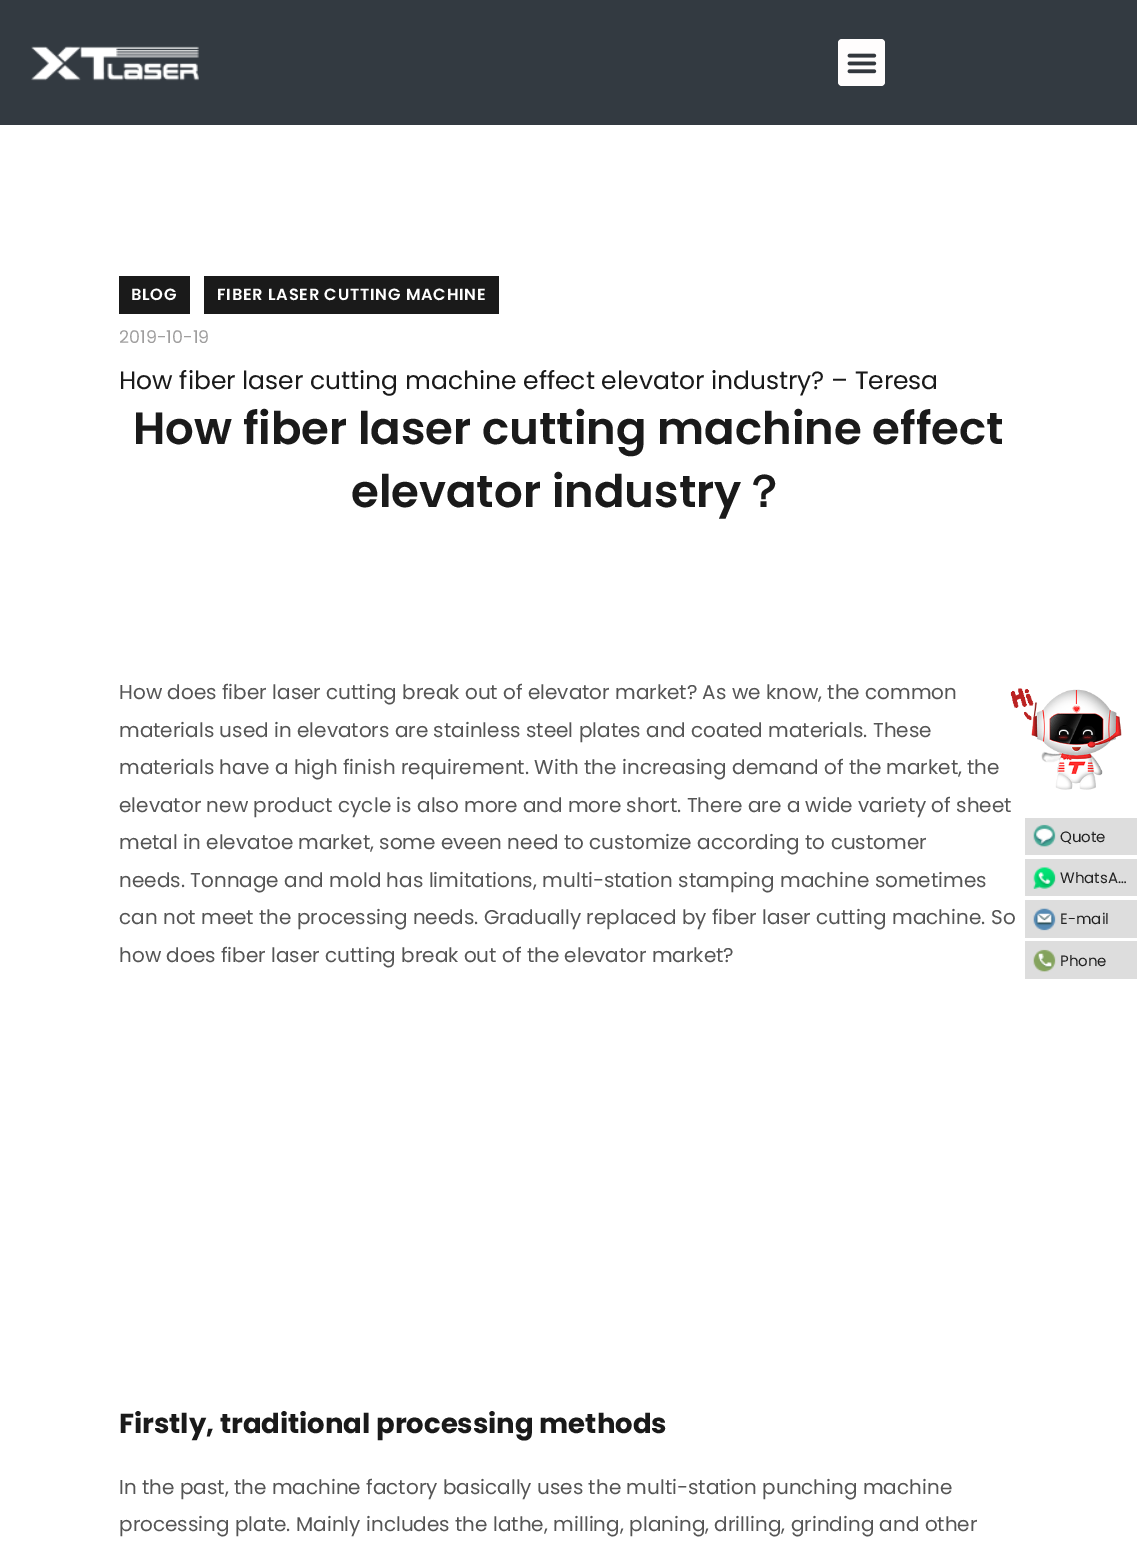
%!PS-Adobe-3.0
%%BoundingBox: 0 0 1137 1545
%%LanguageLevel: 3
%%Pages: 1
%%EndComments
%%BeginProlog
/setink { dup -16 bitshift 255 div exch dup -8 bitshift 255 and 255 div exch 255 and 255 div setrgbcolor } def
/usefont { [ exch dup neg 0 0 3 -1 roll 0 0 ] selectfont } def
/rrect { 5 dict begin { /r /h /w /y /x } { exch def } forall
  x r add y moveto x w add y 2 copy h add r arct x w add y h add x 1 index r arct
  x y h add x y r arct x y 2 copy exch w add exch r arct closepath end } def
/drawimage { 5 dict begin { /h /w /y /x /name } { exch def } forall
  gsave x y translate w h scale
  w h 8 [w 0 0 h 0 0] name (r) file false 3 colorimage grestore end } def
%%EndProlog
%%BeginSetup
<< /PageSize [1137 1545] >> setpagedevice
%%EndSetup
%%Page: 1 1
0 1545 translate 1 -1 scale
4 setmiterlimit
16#FFFFFF setink
0 0 1137 1545 rectfill
16#333A41 setink
0 0 1137 125 rectfill
(img1.raw) 31 46 168 35 drawimage
16#FFFDFD setink
838 39 47 47 4 rrect fill
(img2.raw) 847 53 30 21 drawimage
16#1A1A1A setink
119 276 71 38 rectfill
/Poppins-SemiBold 16.25 usefont
16#FFFFFF setink
131 300 moveto 0.75 0 (BLOG) ashow
16#1A1A1A setink
204 276 295 38 rectfill
16#FFFFFF setink
217 300 moveto 0.75 0 (FIBER LASER CUTTING MACHINE) ashow
/Poppins-Regular 17.5 usefont
16#9F9E9E setink
119 343 moveto (2019-10-19) show
/Poppins-Regular 25 usefont
16#1A1A1A setink
119 389 moveto (How fiber laser cutting machine effect elevator industry? – Teresa) show
/Poppins-SemiBold 45 usefont
133 444 moveto (How fiber laser cutting machine effect) show
351 507 moveto (elevator industry) show
/WenQuanYiZenHei-Bold 45 usefont
741 507 moveto (？) show
/Poppins-Regular 20 usefont
16#555555 setink
[
    [(How does fiber laser cutting break out of elevator market? As we know, the common) 119 699]
    [(materials used in elevators are stainless steel plates and coated materials. These) 119 737]
    [(materials have a high finish requirement. With the increasing demand of the market, the) 119 774]
    [(elevator new product cycle is also more and more short. There are a wide variety of sheet) 119 812]
    [(metal in elevatoe market, some eveen need to customize according to customer) 119 849]
    [(needs. Tonnage and mold has limitations, multi-station stamping machine sometimes) 119 887]
    [(can not meet the processing needs. Gradually replaced by fiber laser cutting machine. So) 119 924]
    [(how does fiber laser cutting break out of the elevator market?) 119 962]
] { aload pop moveto show } forall
/Poppins-Bold 27.5 usefont
16#1A1A1A setink
119 1433 moveto (Firstly, traditional processing methods) show
/Poppins-Regular 20 usefont
16#555555 setink
119 1494 moveto (In the past, the machine factory basically uses the multi-station punching machine) show
119 1531 moveto (processing plate. Mainly includes the lathe, milling, planing, drilling, grinding and other) show
(img3.raw) 1010 688 112 102 drawimage
16#DDDDDD setink
1025 818 112 37 rectfill
(img4.raw) 1033 824 23 23 drawimage
/Poppins-Regular 15 usefont
16#222222 setink
1060 842 moveto (Quote) show
16#DDDDDD setink
1025 859 112 37 rectfill
(img5.raw) 1033 867 23 22 drawimage
16#222222 setink
1060 883 moveto (WhatsA…) show
16#DDDDDD setink
1025 900 112 38 rectfill
(img6.raw) 1033 908 23 23 drawimage
16#222222 setink
1060 924 moveto (E-mail) show
16#DDDDDD setink
1025 941 112 38 rectfill
(img7.raw) 1033 949 23 23 drawimage
16#222222 setink
1060 966 moveto (Phone) show
showpage
%%EOF
